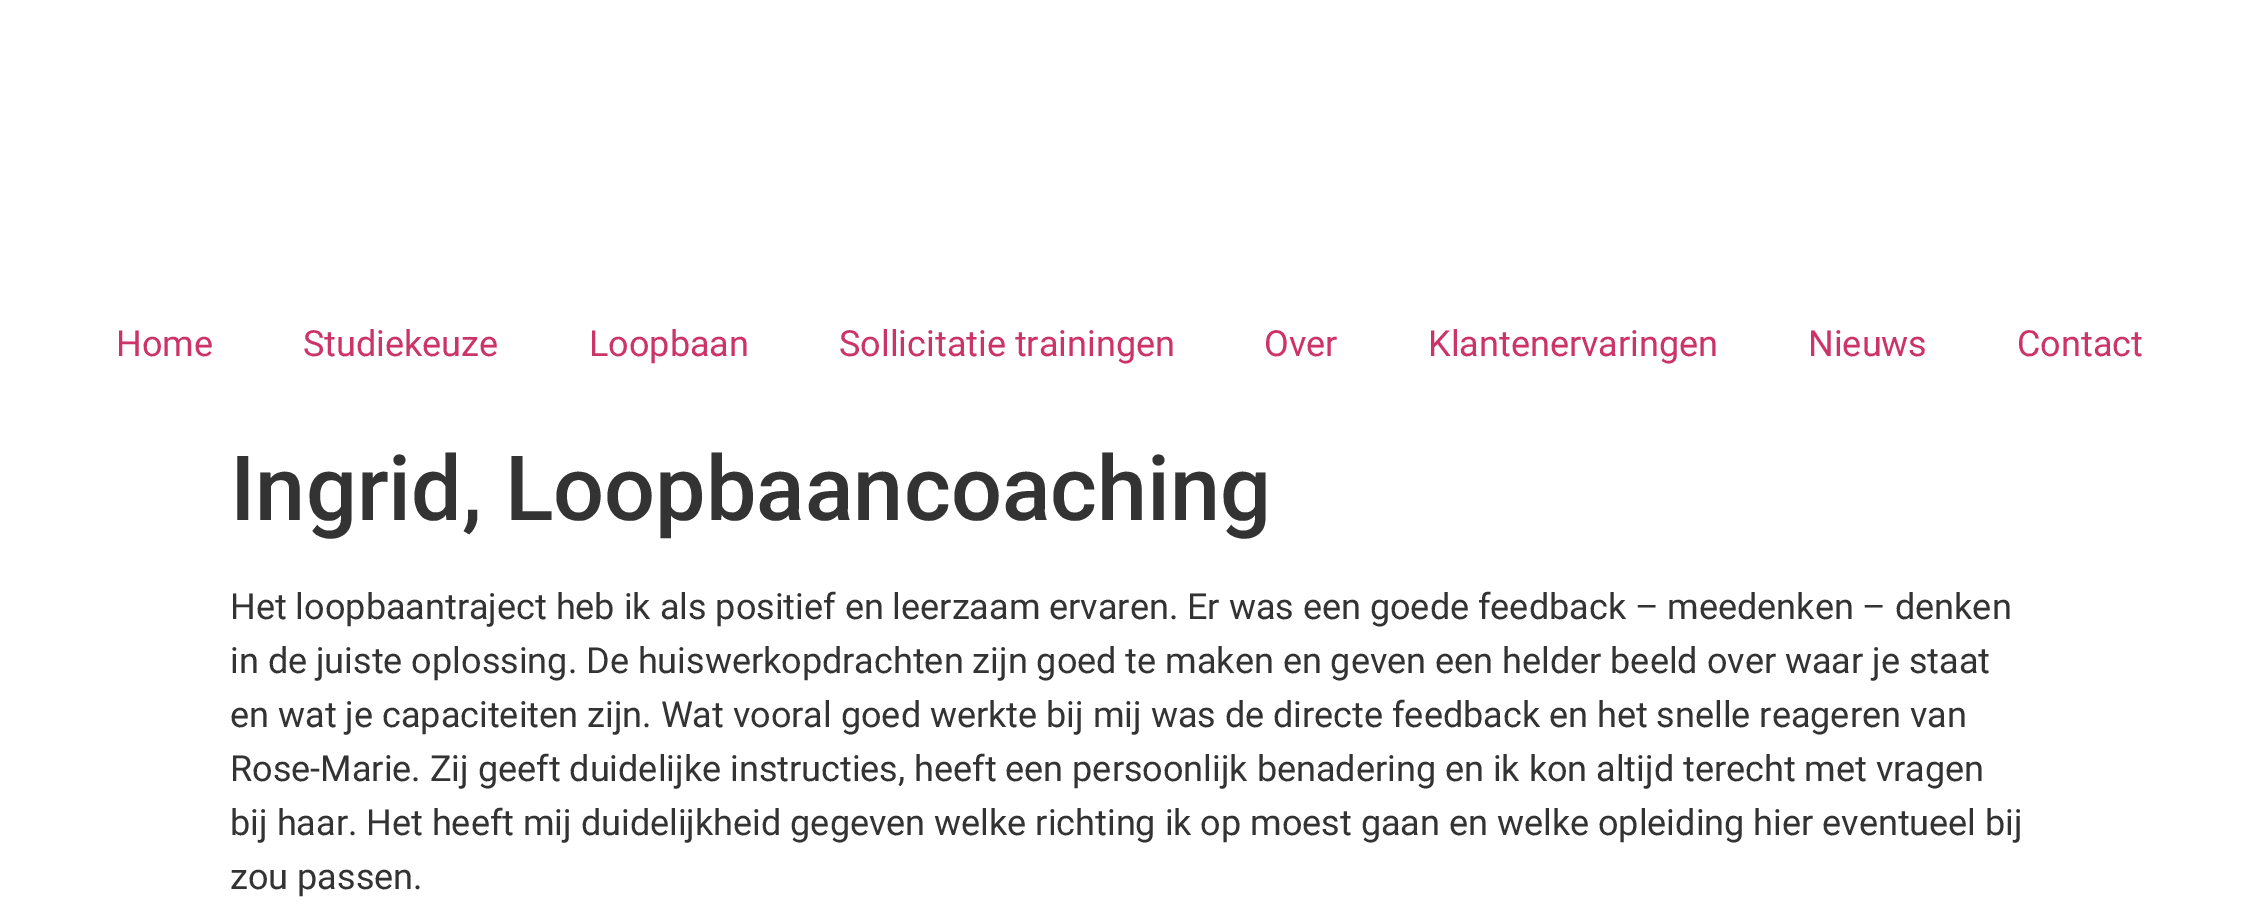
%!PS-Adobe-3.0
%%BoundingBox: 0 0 2259 910
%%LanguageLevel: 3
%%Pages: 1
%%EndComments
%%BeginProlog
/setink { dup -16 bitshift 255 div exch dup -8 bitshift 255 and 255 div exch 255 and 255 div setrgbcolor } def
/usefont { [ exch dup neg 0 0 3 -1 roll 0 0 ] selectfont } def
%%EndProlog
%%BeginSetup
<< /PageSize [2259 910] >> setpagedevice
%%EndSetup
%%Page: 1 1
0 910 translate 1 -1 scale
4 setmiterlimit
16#FFFFFF setink
0 0 2259 910 rectfill
/Roboto-Regular 36 usefont
16#CC3366 setink
[
    [(Home) 116 356]
    [(Studiekeuze) 303 356]
    [(Loopbaan) 589 356]
    [(Sollicitatie trainingen) 839 356]
    [(Over) 1264 356]
    [(Klantenervaringen) 1428 356]
    [(Nieuws) 1808 356]
    [(Contact) 2017 356]
] { aload pop moveto show } forall
/Roboto-Medium 90 usefont
16#333333 setink
230 520 moveto (Ingrid, Loopbaancoaching) show
/Roboto-Regular 36 usefont
[
    [(Het loopbaantraject heb ik als positief en leerzaam ervaren. Er was een goede feedback – meedenken – denken) 230 619]
    [(in de juiste oplossing. De huiswerkopdrachten zijn goed te maken en geven een helder beeld over waar je staat) 230 673]
    [(en wat je capaciteiten zijn. Wat vooral goed werkte bij mij was de directe feedback en het snelle reageren van) 230 727]
    [(Rose-Marie. Zij geeft duidelijke instructies, heeft een persoonlijk benadering en ik kon altijd terecht met vragen) 230 781]
    [(bij haar. Het heeft mij duidelijkheid gegeven welke richting ik op moest gaan en welke opleiding hier eventueel bij) 230 835]
    [(zou passen.) 230 889]
] { aload pop moveto show } forall
showpage
%%EOF
